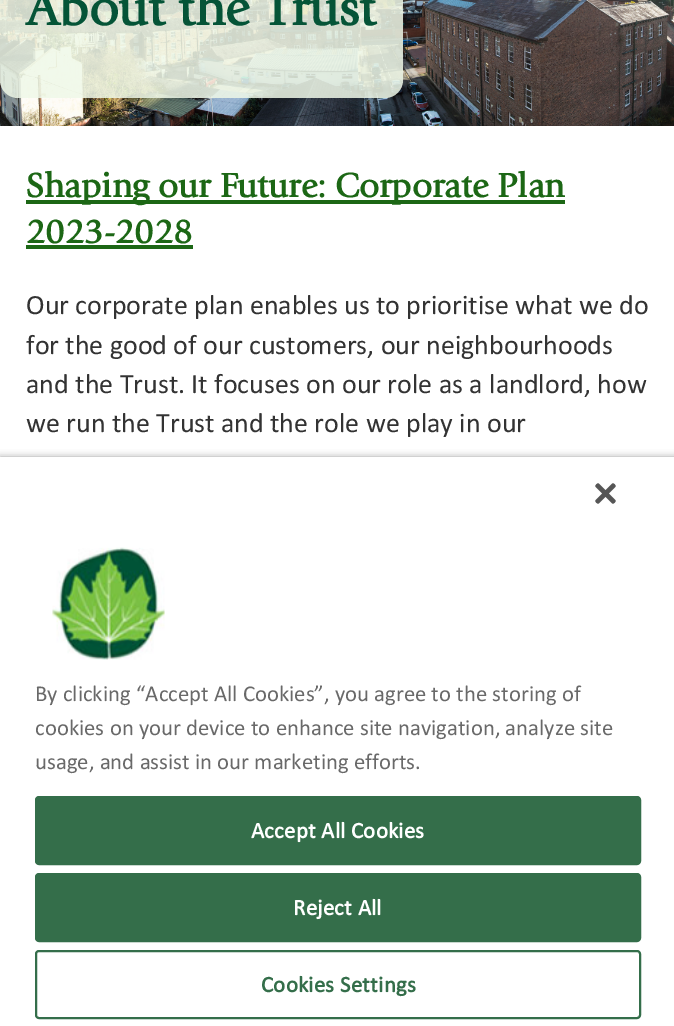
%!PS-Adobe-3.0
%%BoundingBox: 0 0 674 1026
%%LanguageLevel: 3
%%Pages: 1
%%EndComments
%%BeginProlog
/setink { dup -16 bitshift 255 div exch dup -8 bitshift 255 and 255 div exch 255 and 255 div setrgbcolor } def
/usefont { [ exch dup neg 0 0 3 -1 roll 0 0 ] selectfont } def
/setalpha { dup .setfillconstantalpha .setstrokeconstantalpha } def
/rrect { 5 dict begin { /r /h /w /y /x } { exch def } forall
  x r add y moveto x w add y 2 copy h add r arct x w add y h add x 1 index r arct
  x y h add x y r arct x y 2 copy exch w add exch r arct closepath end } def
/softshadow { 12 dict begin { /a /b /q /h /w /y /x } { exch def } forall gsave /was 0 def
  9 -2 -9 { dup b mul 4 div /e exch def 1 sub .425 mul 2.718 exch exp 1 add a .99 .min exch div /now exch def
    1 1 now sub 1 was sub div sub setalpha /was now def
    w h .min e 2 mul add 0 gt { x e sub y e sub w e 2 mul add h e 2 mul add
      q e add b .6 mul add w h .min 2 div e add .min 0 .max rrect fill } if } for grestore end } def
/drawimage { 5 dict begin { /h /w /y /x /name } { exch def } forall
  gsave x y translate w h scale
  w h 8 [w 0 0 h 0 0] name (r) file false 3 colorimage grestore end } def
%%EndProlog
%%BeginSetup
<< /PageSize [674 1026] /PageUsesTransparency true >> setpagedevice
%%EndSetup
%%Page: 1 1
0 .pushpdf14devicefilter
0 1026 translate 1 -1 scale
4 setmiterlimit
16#FFFFFF setink
0 0 674 1026 rectfill
(img1.raw) 0 0 674 126 drawimage
0.85 setalpha
16#EFF8E8 setink
0 -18 403 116 18 rrect fill
/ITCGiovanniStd-Bold 52 usefont
1 setalpha
16#055437 setink
26 25 moveto (About the Trust) show
16#1C6715 setink
26 200 539 4 rectfill
/ITCGiovanniStd-Bold 35 usefont
26 197 moveto (Shaping our Future: Corporate Plan) show
26 243 moveto (2023-2028) show
26 245 167 4 rectfill
/Calibri-Regular 28 usefont
16#333333 setink
[
    [(Our corporate plan enables us to prioritise what we do) 26 314]
    [(for the good of our customers, our neighbourhoods) 26 354]
    [(and the Trust. It focuses on our role as a landlord, how) 26 393]
    [(we run the Trust and the role we play in our) 26 432]
] { aload pop moveto show } forall
16#000000 setink
0 457 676 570 0 3.5 0.35 softshadow
16#FFFFFF setink
0 457 674 569 rectfill
(img2.raw) 595 483 21 21 drawimage
(img3.raw) 52 547 113 113 drawimage
/Calibri-Regular 22.75 usefont
16#696969 setink
[
    [(By clicking “Accept All Cookies”, you agree to the storing of) 35 701]
    [(cookies on your device to enhance site navigation, analyze site) 35 735]
    [(usage, and assist in our marketing efforts.) 35 769]
] { aload pop moveto show } forall
16#346E4A setink
36 797 604 67 3 rrect gsave fill grestore
2 setlinewidth
stroke
/Calibri-Bold 22.75 usefont
16#FFFFFF setink
251 838 moveto 0.25 0 (Accept All Cookies) ashow
16#346E4A setink
36 874 604 67 3 rrect gsave fill grestore
stroke
16#FFFFFF setink
293 915 moveto 0.25 0 (Reject All) ashow
16#346E4A setink
36 951 604 67 3 rrect stroke
261 992 moveto 0.25 0 (Cookies Settings) ashow
.poppdf14devicefilter showpage
%%EOF
